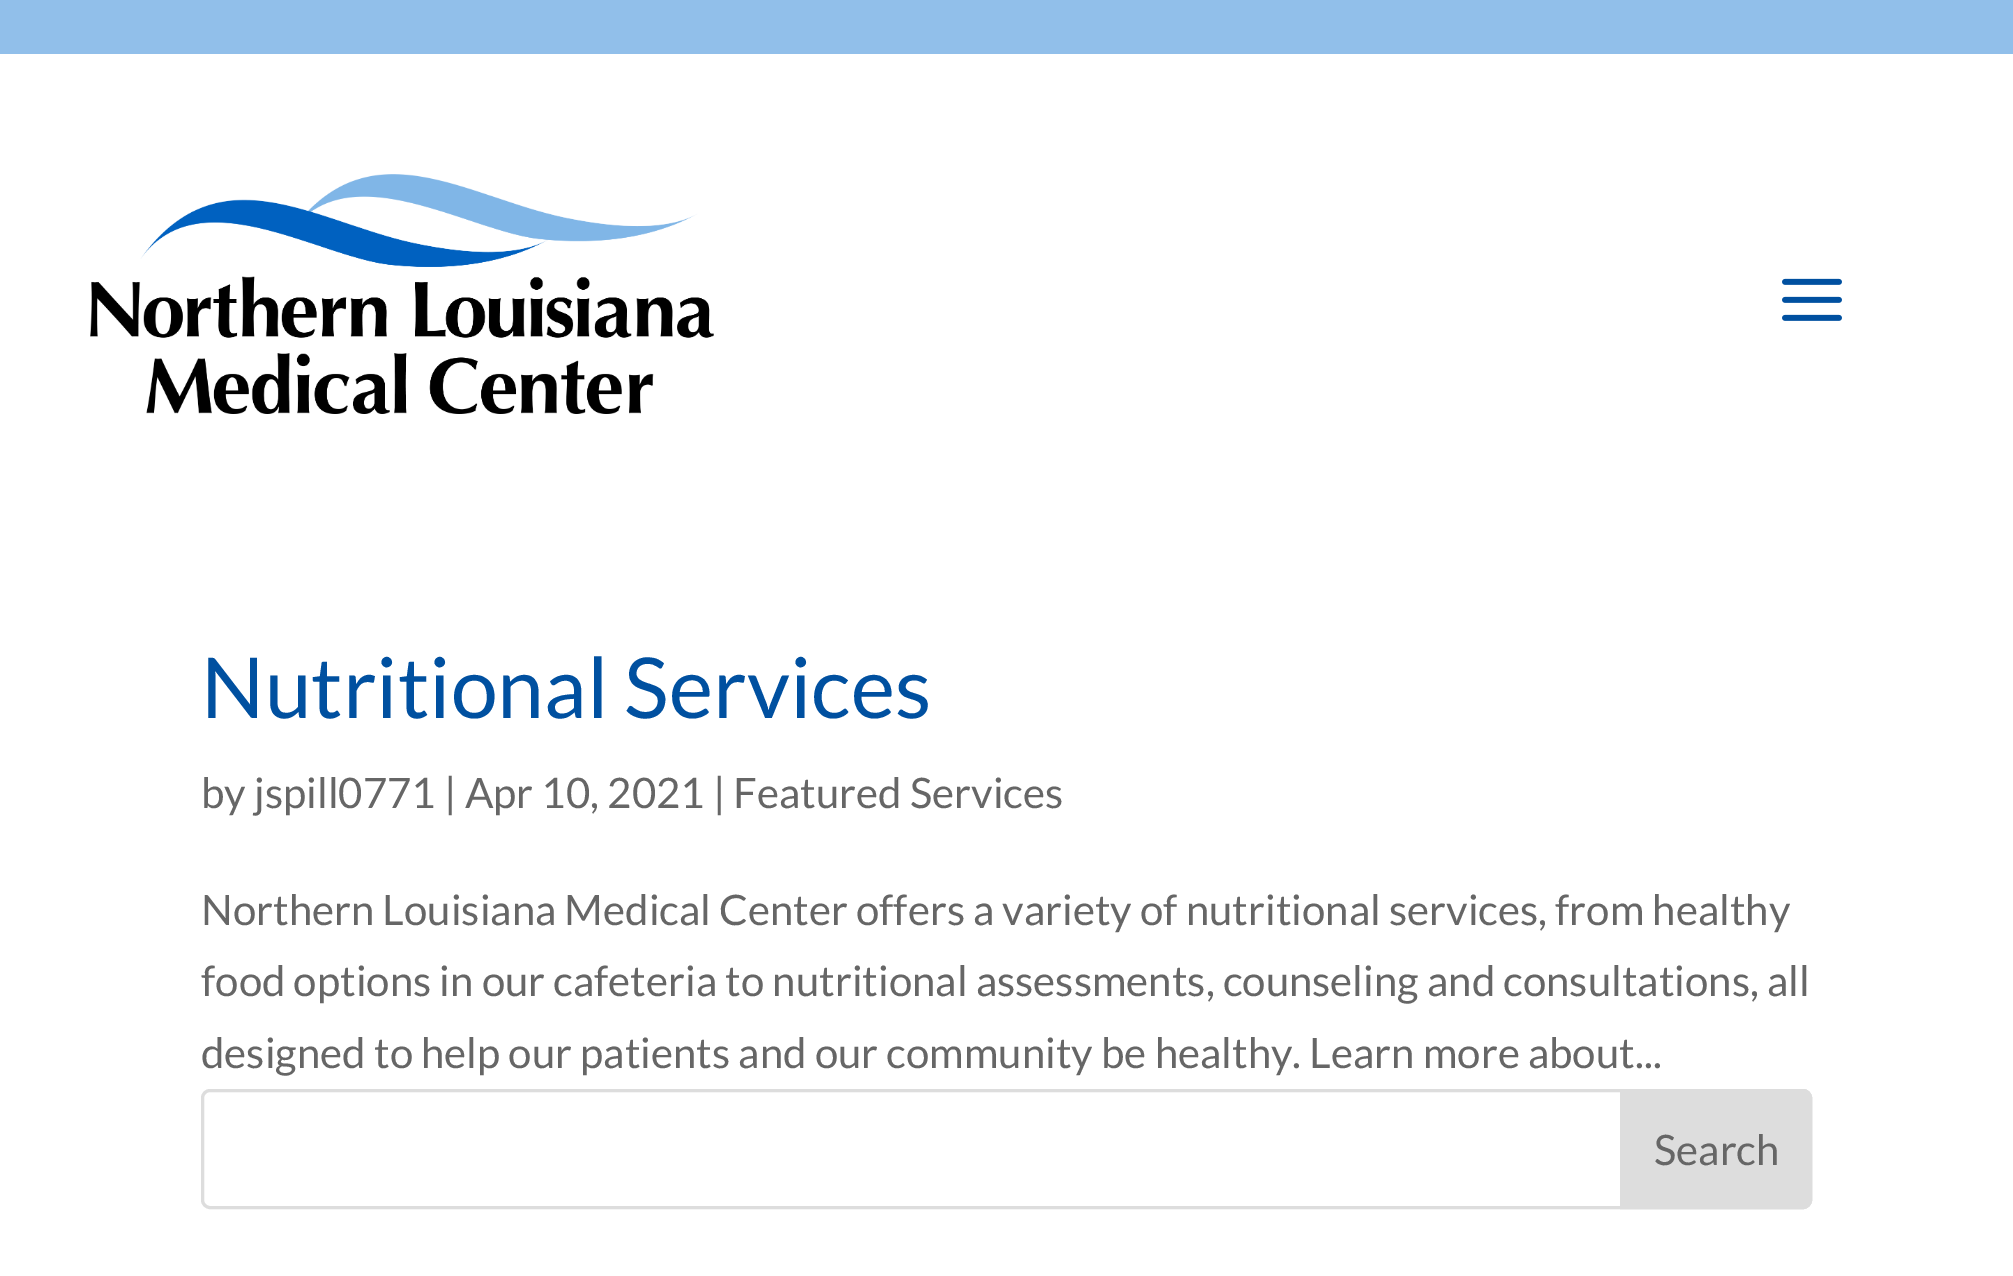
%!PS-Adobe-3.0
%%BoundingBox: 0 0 2013 1276
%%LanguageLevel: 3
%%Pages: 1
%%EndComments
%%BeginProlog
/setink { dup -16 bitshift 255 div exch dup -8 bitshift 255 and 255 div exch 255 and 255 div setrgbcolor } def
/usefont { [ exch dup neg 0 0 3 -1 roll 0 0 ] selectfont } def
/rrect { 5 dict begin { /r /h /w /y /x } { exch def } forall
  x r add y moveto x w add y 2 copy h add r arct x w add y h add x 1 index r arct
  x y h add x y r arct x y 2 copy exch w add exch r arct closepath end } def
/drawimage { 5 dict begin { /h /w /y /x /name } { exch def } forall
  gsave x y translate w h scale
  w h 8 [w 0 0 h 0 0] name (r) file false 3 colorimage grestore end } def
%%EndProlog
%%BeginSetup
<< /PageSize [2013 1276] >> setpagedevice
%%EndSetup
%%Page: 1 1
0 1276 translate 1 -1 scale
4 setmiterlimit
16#FFFFFF setink
0 0 2013 1276 rectfill
16#91BFEA setink
0 0 2013 54 rectfill
(img1.raw) 90 174 624 240 drawimage
(img2.raw) 1782 278 60 43 drawimage
/Lato-Regular 84 usefont
16#0050A0 setink
201 718 moveto (Nutritional Services) show
/Lato-Regular 42 usefont
16#666666 setink
[
    [(by jspill0771 | Apr 10, 2021 | Featured Services) 201 808]
    [(Northern Louisiana Medical Center offers a variety of nutritional services, from healthy) 201 925]
    [(food options in our cafeteria to nutritional assessments, counseling and consultations, all) 201 996]
    [(designed to help our patients and our community be healthy. Learn more about...) 201 1068]
] { aload pop moveto show } forall
16#DDDDDD setink
3 setlinewidth
202.5 1090.5 1608 117 7.5 rrect stroke
1621.5 1090.5 moveto 1803 1090.5 lineto 1807 1090.5 1810.5 1094 1810.5 1098 curveto 1810.5 1200 lineto 1810.5 1204 1807 1207.5 1803 1207.5 curveto 1621.5 1207.5 lineto closepath gsave fill grestore
stroke
16#666666 setink
1654 1165 moveto (Search) show
showpage
%%EOF
